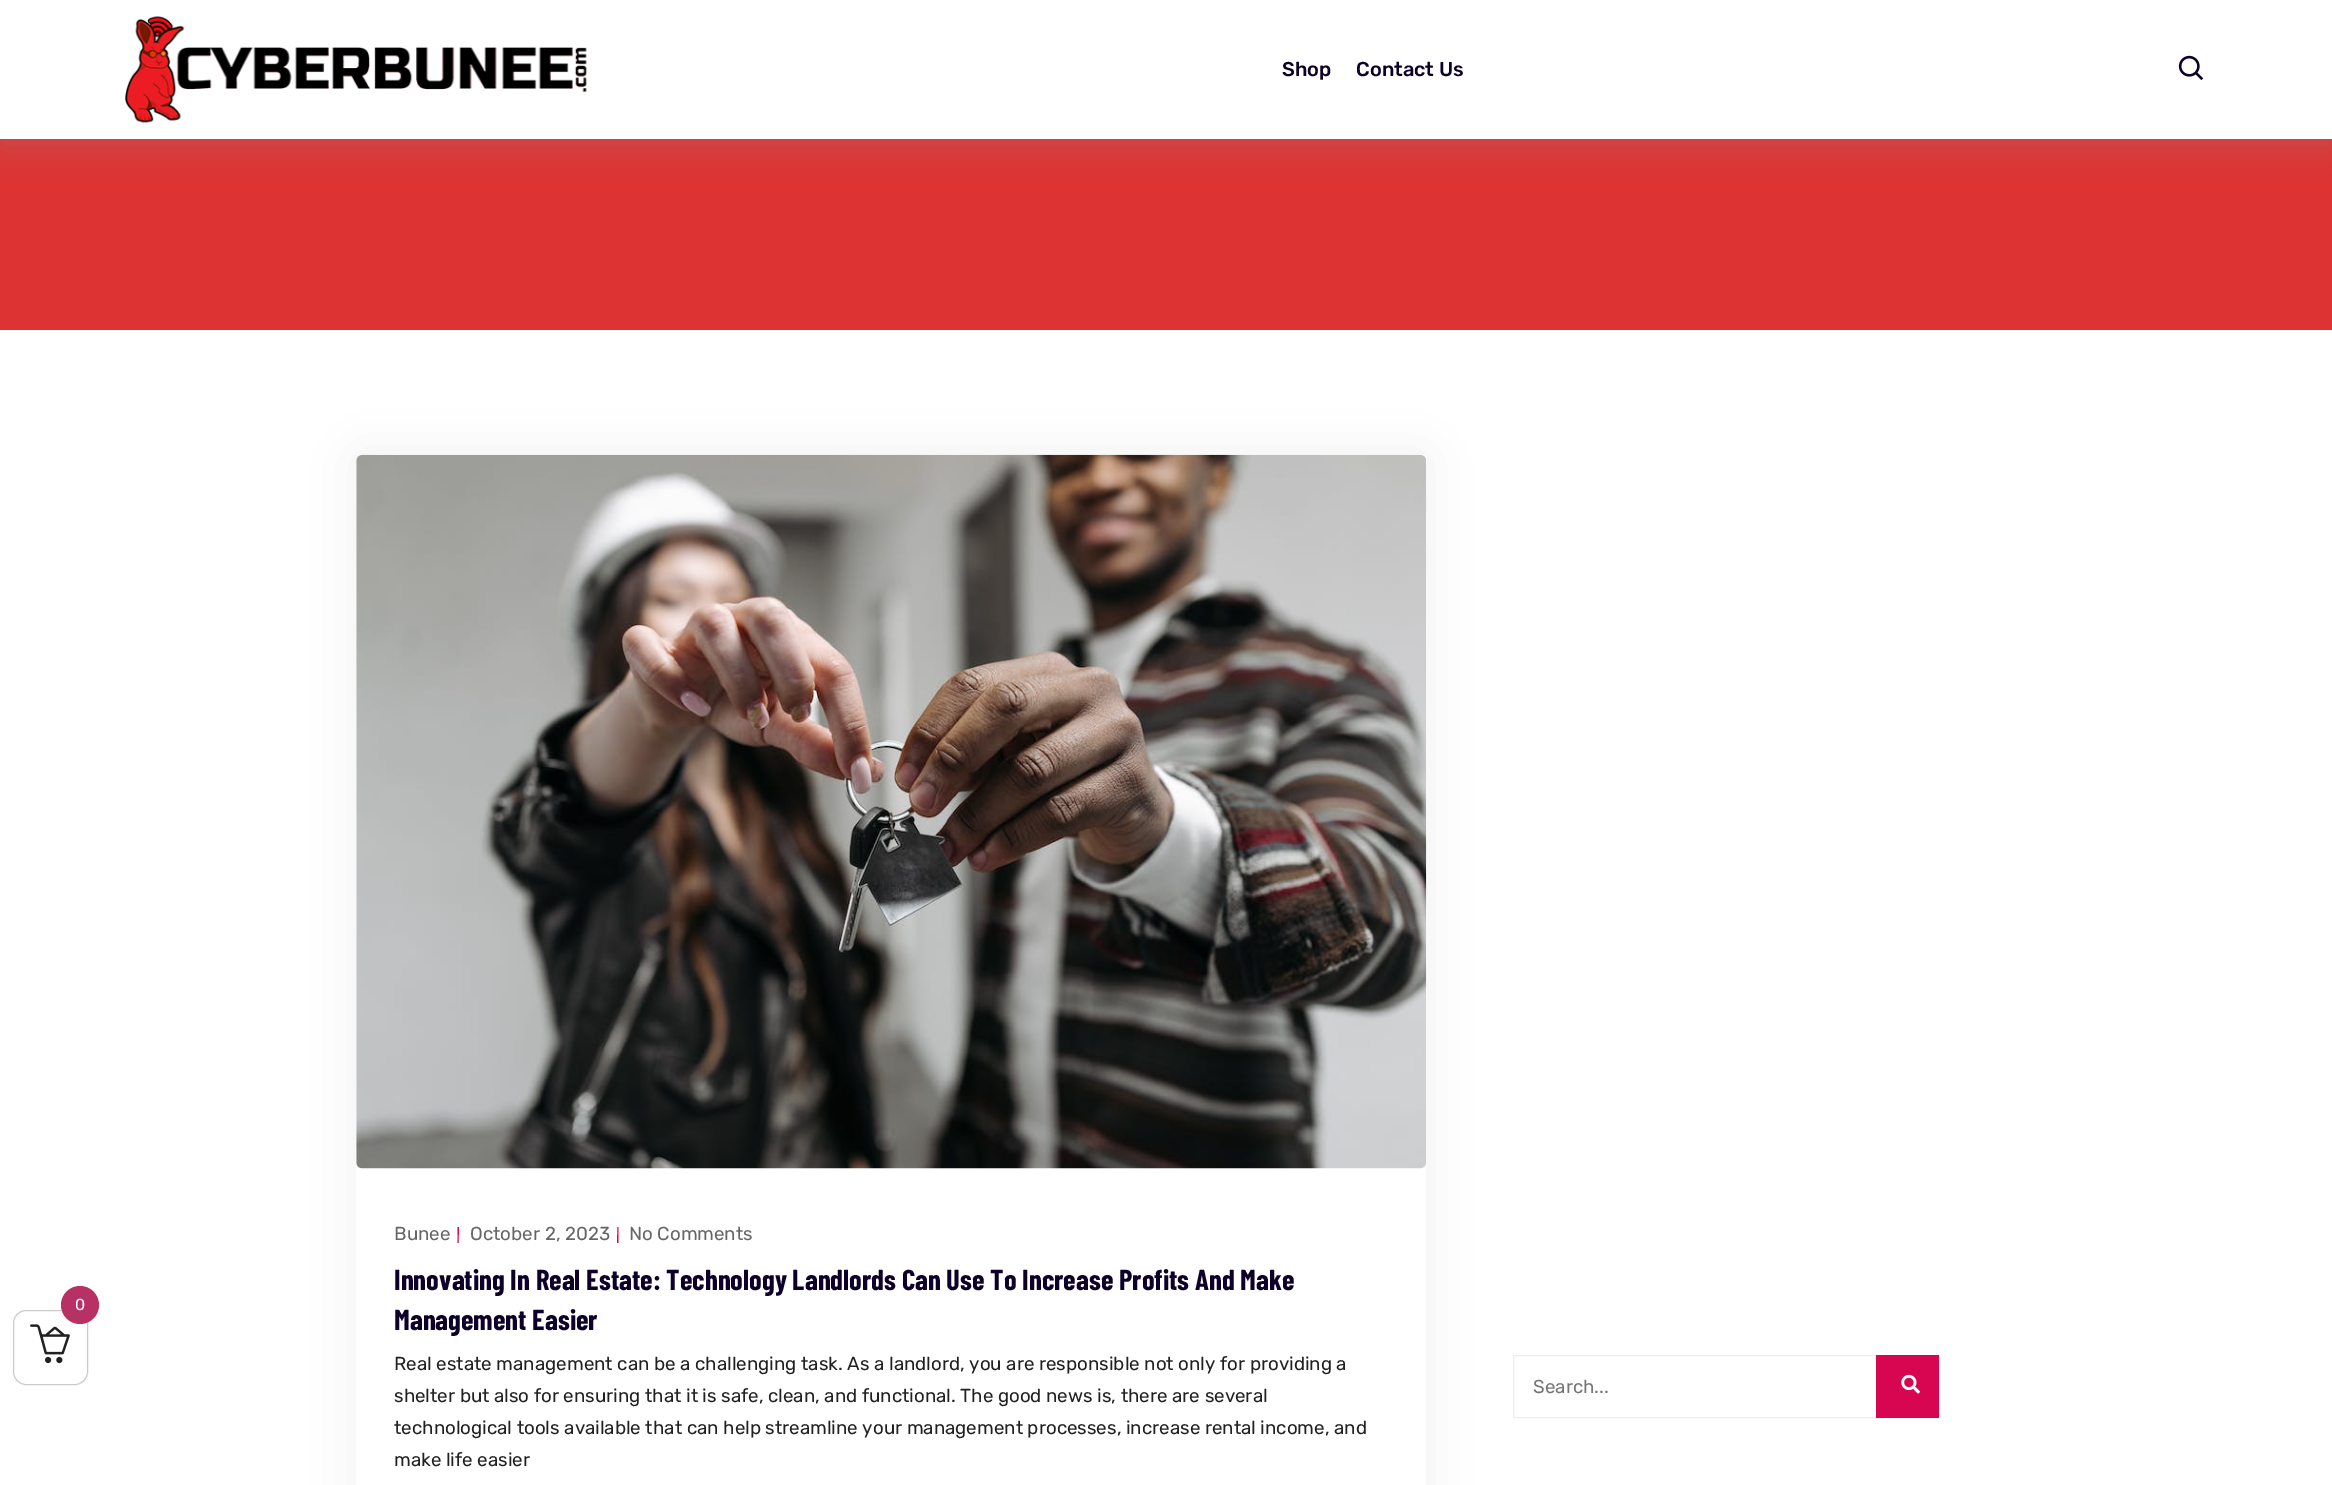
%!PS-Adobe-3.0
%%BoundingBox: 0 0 2332 1485
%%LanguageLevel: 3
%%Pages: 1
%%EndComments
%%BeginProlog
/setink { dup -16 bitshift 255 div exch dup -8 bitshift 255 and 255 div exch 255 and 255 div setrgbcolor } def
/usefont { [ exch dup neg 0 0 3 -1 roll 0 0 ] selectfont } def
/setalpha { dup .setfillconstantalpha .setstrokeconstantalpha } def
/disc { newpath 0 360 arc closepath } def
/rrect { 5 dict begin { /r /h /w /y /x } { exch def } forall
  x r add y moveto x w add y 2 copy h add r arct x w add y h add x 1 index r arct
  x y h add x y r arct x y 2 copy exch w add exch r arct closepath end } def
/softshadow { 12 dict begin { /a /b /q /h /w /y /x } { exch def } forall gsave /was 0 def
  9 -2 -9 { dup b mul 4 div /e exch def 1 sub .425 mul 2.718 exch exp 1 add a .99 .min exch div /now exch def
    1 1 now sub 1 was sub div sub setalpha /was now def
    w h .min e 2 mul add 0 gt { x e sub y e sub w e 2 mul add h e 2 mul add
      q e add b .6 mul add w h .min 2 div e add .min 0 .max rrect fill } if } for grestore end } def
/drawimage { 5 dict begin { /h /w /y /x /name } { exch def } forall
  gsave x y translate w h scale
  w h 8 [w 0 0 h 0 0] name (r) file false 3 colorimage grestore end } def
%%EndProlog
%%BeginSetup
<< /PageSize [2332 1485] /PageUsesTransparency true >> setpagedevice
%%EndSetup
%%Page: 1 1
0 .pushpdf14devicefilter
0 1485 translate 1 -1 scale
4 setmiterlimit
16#FFFFFF setink
0 0 2332 1485 rectfill
16#DD3333 setink
0 139 2332 191 rectfill
16#959DA5 setink
0 10 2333 139 0 15 0.2 softshadow
16#FFFFFF setink
0 0 2332 139 rectfill
(img1.raw) 125 16 462 107 drawimage
/Rubik-Medium 20 usefont
16#0E0129 setink
1282 76 moveto (Shop) show
1356 76 moveto (Contact Us) show
(img2.raw) 2178 55 26 26 drawimage
16#CCCCCC setink
13.5 1310.5 74 74 12.5 rrect stroke
16#B83164 setink
80 1305 19 disc fill
/Rubik-Light 16 usefont
16#FFFFFF setink
75 1310 moveto (0) show
(img3.raw) 30 1324 40 40 drawimage
16#000000 setink
353 451 1077 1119 10 25 0.05 softshadow
16#FFFFFF setink
356 455 1070 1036 6 rrect fill
(img4.raw) 356 454 1071 715 drawimage
/Rubik-Light 18.75 usefont
16#666666 setink
394 1240 moveto (Bunee) show
16#D80650 setink
457.5 1227 moveto 459 1227 lineto 458.5 1243 lineto 457.5 1243 lineto closepath fill
16#666666 setink
470 1240 moveto (October 2, 2023) show
16#D80650 setink
617.5 1227 moveto 618.5 1227 lineto 618.5 1243 lineto 617 1243 lineto closepath fill
16#666666 setink
629 1240 moveto (No Comments) show
/BarlowCondensed-Bold 28.75 usefont
16#0E0129 setink
394 1290 moveto (Innovating In Real Estate: Technology Landlords Can Use To Increase Profits And Make) show
394 1330 moveto (Management Easier) show
/Rubik-Light 18.75 usefont
16#212121 setink
[
    [(Real estate management can be a challenging task. As a landlord, you are responsible not only for providing a) 394 1370]
    [(shelter but also for ensuring that it is safe, clean, and functional. The good news is, there are several) 394 1402]
    [(technological tools available that can help streamline your management processes, increase rental income, and) 394 1434]
    [(make life easier) 394 1466]
] { aload pop moveto show } forall
16#EEEEEE setink
1513.5 1355.5 425 62 rectstroke
16#757575 setink
1533 1393 moveto (Search...) show
16#D80650 setink
1876 1355 63 63 rectfill
(img5.raw) 1901 1374 19 20 drawimage
.poppdf14devicefilter showpage
%%EOF
